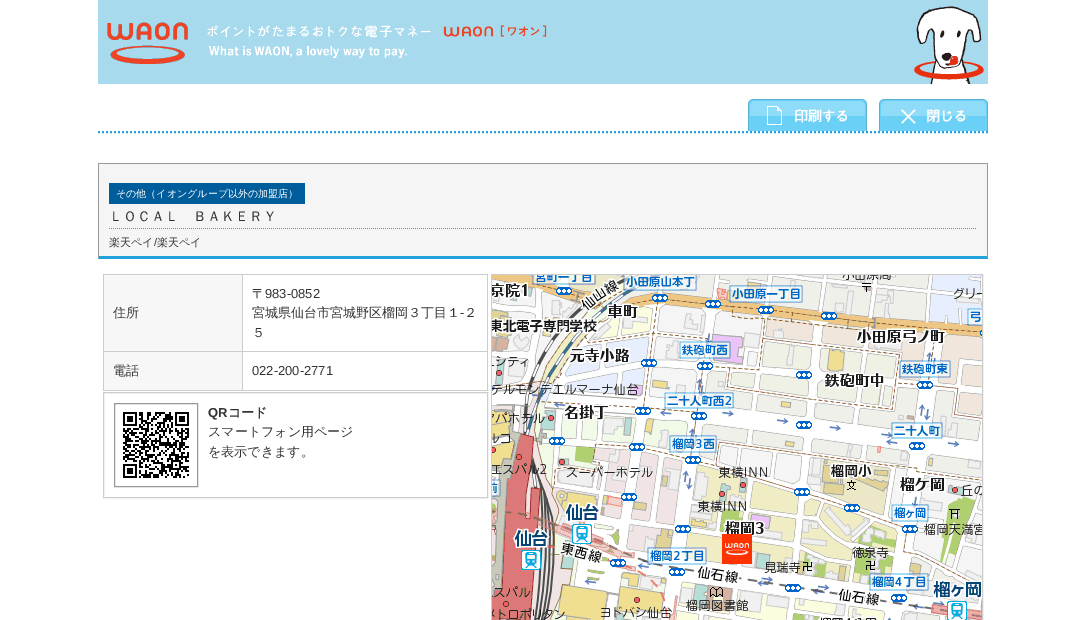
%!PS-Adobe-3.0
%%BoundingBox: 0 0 1086 620
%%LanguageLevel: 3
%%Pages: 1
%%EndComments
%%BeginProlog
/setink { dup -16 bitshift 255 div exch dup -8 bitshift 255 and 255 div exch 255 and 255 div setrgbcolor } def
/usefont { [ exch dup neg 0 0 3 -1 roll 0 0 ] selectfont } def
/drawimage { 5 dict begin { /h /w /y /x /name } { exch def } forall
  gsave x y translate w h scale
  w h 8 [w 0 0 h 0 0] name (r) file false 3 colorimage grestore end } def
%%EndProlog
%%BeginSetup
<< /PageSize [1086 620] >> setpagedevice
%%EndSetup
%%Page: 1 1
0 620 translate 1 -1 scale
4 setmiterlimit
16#FFFFFF setink
0 0 1086 620 rectfill
(img1.raw) 98 0 890 84 drawimage
16#21A2DC setink
2 setlinewidth
[2 2] 0 setdash
98 132 moveto 988 132 lineto stroke
(img2.raw) 748 99 119 32 drawimage
(img3.raw) 879 99 109 32 drawimage
16#F5F5F5 setink
98 178 890 81 rectfill
(img4.raw) 98 163 890 15 drawimage
16#999999 setink
988 178 moveto 988 259 lineto 987 256 lineto 987 178 lineto closepath fill
16#21A2DD setink
988 259 moveto 98 259 lineto 99 256 lineto 987 256 lineto closepath fill
16#999999 setink
98 259 moveto 98 178 lineto 99 178 lineto 99 256 lineto closepath fill
(img5.raw) 109 228 868 1 drawimage
16#005D9B setink
109 183 196 21 rectfill
/WenQuanYiZenHei-Medium 10 usefont
16#FFFFFF setink
116 197 moveto (その他（イオングループ以外の加盟店）) show
/WenQuanYiZenHei-Medium 14 usefont
16#333333 setink
109 221 moveto (ＬＯＣＡＬ　ＢＡＫＥＲＹ) show
/WenQuanYiZenHei-Medium 11 usefont
109 246 moveto (楽天ペイ) show
/LiberationSans-Regular 11 usefont
154 246 moveto (/) show
/WenQuanYiZenHei-Medium 11 usefont
157 246 moveto (楽天ペイ) show
[
    [103 274 385 1 16#CCCCCC]
    [487 274 1 117 16#CCCCCC]
    [104 275 138 76 16#F7F7F7]
    [242 390 246 1 16#CCCCCC]
    [242 351 1 40 16#CCCCCC]
    [242 351 246 1 16#CCCCCC]
    [242 274 1 78 16#CCCCCC]
    [103 390 140 1 16#CCCCCC]
    [103 351 1 40 16#CCCCCC]
    [103 351 140 1 16#CCCCCC]
    [103 274 1 78 16#CCCCCC]
] { aload pop setink rectfill } forall
/WenQuanYiZenHei-Medium 13 usefont
16#333333 setink
113 317 moveto (住所) show
252 298 moveto (〒) show
/LiberationSans-Regular 13 usefont
265 298 moveto (983-0852) show
/WenQuanYiZenHei-Medium 13 usefont
252 317 moveto (宮城県仙台市宮城野区榴岡３丁目１) show
/LiberationSans-Regular 13 usefont
460 317 moveto (‐) show
/WenQuanYiZenHei-Medium 13 usefont
464 317 moveto (２) show
252 337 moveto (５) show
16#F7F7F7 setink
104 352 138 38 rectfill
16#333333 setink
113 375 moveto (電話) show
/LiberationSans-Regular 13 usefont
252 375 moveto (022-200-2771) show
16#CCCCCC setink
1 setlinewidth
[] 0 setdash
103.5 392.5 384 105 rectstroke
16#999999 setink
114.5 403.5 83 83 rectstroke
(img6.raw) 123 412 66 66 drawimage
/LiberationSans-Bold 13 usefont
16#333333 setink
208 417 moveto (QR) show
/WenQuanYiZenHei-Bold 13 usefont
228 417 moveto (コード) show
/WenQuanYiZenHei-Medium 13 usefont
208 436 moveto (スマートフォン用ページ) show
208 456 moveto (を表示できます。) show
16#CCCCCC setink
491.5 274.5 491 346 rectstroke
(img7.raw) 492 275 490 345 drawimage
showpage
%%EOF
